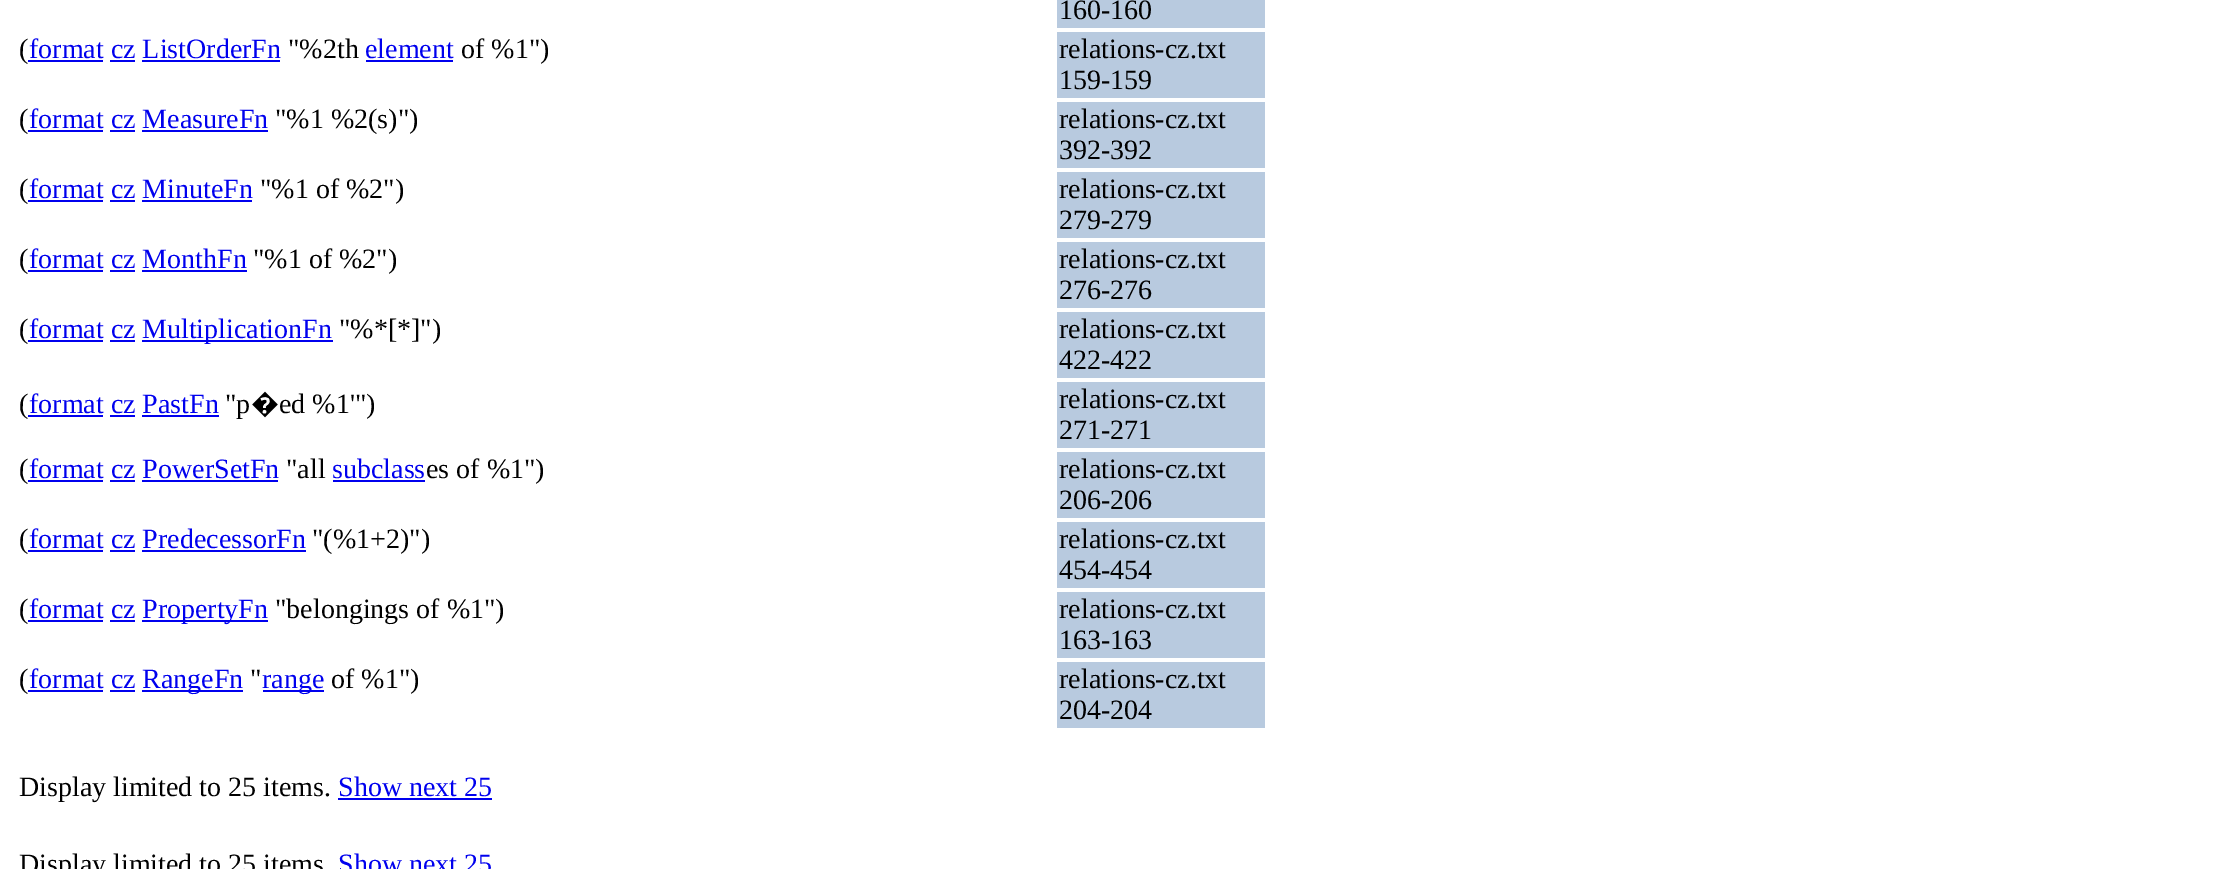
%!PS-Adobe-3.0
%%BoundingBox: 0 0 2223 869
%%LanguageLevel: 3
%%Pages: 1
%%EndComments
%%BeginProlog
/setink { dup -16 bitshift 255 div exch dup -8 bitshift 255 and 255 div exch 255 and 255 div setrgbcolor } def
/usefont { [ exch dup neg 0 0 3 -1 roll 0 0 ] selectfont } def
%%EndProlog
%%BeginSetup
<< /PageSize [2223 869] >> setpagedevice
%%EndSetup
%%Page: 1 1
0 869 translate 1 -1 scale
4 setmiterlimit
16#FFFFFF setink
0 0 2223 869 rectfill
16#B8CADF setink
1057 0 208 28 rectfill
/LiberationSerif-Regular 28 usefont
16#000000 setink
1059 19 moveto (160-160) show
19 58 moveto (\() show
16#0000EE setink
29 58 moveto (format cz ListOrderFn) show
28 60 75 2 rectfill
16#000000 setink
288 58 moveto ("%2th) show
16#0000EE setink
365 58 moveto (element) show
366 60 87 2 rectfill
16#000000 setink
461 58 moveto (of %1"\)) show
[
    [110 60 25 2 16#0000EE]
    [142 60 138 2 16#0000EE]
    [1057 32 208 66 16#B8CADF]
] { aload pop setink rectfill } forall
16#000000 setink
[
    [(relations-cz.txt) 1059 58]
    [(159-159) 1059 89]
    [(\() 19 128]
] { aload pop moveto show } forall
16#0000EE setink
29 128 moveto (format cz MeasureFn) show
28 130 75 2 rectfill
16#000000 setink
275 128 moveto ("%1 %2\(s\)"\)) show
[
    [110 130 25 2 16#0000EE]
    [142 130 126 2 16#0000EE]
    [1057 102 208 66 16#B8CADF]
] { aload pop setink rectfill } forall
16#000000 setink
[
    [(relations-cz.txt) 1059 128]
    [(392-392) 1059 159]
    [(\() 19 198]
] { aload pop moveto show } forall
16#0000EE setink
29 198 moveto (format cz MinuteFn) show
28 200 75 2 rectfill
16#000000 setink
260 198 moveto ("%1 of %2"\)) show
[
    [110 200 25 2 16#0000EE]
    [142 200 110 2 16#0000EE]
    [1057 172 208 66 16#B8CADF]
] { aload pop setink rectfill } forall
16#000000 setink
[
    [(relations-cz.txt) 1059 198]
    [(279-279) 1059 229]
    [(\() 19 268]
] { aload pop moveto show } forall
16#0000EE setink
29 268 moveto (format cz MonthFn) show
28 270 75 2 rectfill
16#000000 setink
253 268 moveto ("%1 of %2"\)) show
[
    [110 270 25 2 16#0000EE]
    [142 270 105 2 16#0000EE]
    [1057 242 208 66 16#B8CADF]
] { aload pop setink rectfill } forall
16#000000 setink
[
    [(relations-cz.txt) 1059 268]
    [(276-276) 1059 299]
    [(\() 19 338]
] { aload pop moveto show } forall
16#0000EE setink
29 338 moveto (format cz) show
28 340 75 2 rectfill
142 340 191 2 rectfill
142 338 moveto (MultiplicationFn) show
16#000000 setink
339 338 moveto ("%*[*]"\)) show
16#0000EE setink
110 340 25 2 rectfill
16#B8CADF setink
1057 312 208 66 rectfill
16#000000 setink
[
    [(relations-cz.txt) 1059 338]
    [(422-422) 1059 369]
    [(\() 19 413]
] { aload pop moveto show } forall
16#0000EE setink
29 413 moveto (format cz PastFn) show
28 415 75 2 rectfill
16#000000 setink
225 413 moveto ("p) show
/NotoSans-Regular 28 usefont
251 413 moveto (�) show
/LiberationSerif-Regular 28 usefont
279 413 moveto (ed %1'"\)) show
[
    [110 415 25 2 16#0000EE]
    [142 415 77 2 16#0000EE]
    [1057 382 208 66 16#B8CADF]
] { aload pop setink rectfill } forall
16#000000 setink
[
    [(relations-cz.txt) 1059 408]
    [(271-271) 1059 439]
    [(\() 19 478]
] { aload pop moveto show } forall
16#0000EE setink
29 478 moveto (format cz PowerSetFn) show
28 480 75 2 rectfill
16#000000 setink
286 478 moveto ("all) show
16#0000EE setink
332 478 moveto (subclass) show
333 480 92 2 rectfill
16#000000 setink
426 478 moveto (es of %1"\)) show
[
    [110 480 25 2 16#0000EE]
    [142 480 136 2 16#0000EE]
    [1057 452 208 66 16#B8CADF]
] { aload pop setink rectfill } forall
16#000000 setink
[
    [(relations-cz.txt) 1059 478]
    [(206-206) 1059 509]
    [(\() 19 548]
] { aload pop moveto show } forall
16#0000EE setink
29 548 moveto (format cz PredecessorFn) show
28 550 75 2 rectfill
16#000000 setink
312 548 moveto ("\(%1+2\)"\)) show
[
    [110 550 25 2 16#0000EE]
    [142 550 164 2 16#0000EE]
    [1057 522 208 66 16#B8CADF]
] { aload pop setink rectfill } forall
16#000000 setink
[
    [(relations-cz.txt) 1059 548]
    [(454-454) 1059 579]
    [(\() 19 618]
] { aload pop moveto show } forall
16#0000EE setink
29 618 moveto (format cz) show
28 620 75 2 rectfill
142 620 126 2 rectfill
142 618 moveto (PropertyFn) show
16#000000 setink
275 618 moveto ("belongings of %1"\)) show
16#0000EE setink
110 620 25 2 rectfill
16#B8CADF setink
1057 592 208 66 rectfill
16#000000 setink
[
    [(relations-cz.txt) 1059 618]
    [(163-163) 1059 649]
    [(\() 19 688]
] { aload pop moveto show } forall
16#0000EE setink
29 688 moveto (format cz) show
28 690 75 2 rectfill
142 690 101 2 rectfill
142 688 moveto (RangeFn) show
16#000000 setink
250 688 moveto (") show
16#0000EE setink
263 690 61 2 rectfill
262 688 moveto (range) show
16#000000 setink
331 688 moveto (of %1"\)) show
16#0000EE setink
110 690 25 2 rectfill
16#B8CADF setink
1057 662 208 66 rectfill
16#000000 setink
[
    [(relations-cz.txt) 1059 688]
    [(204-204) 1059 719]
    [(Display limited to 25 items.) 19 796]
] { aload pop moveto show } forall
16#0000EE setink
338 796 moveto (Show next 25) show
338 798 154 2 rectfill
16#000000 setink
19 873 moveto (Display limited to 25 items) show
16#0000EE setink
338 873 moveto (Show next 25) show
showpage
%%EOF
